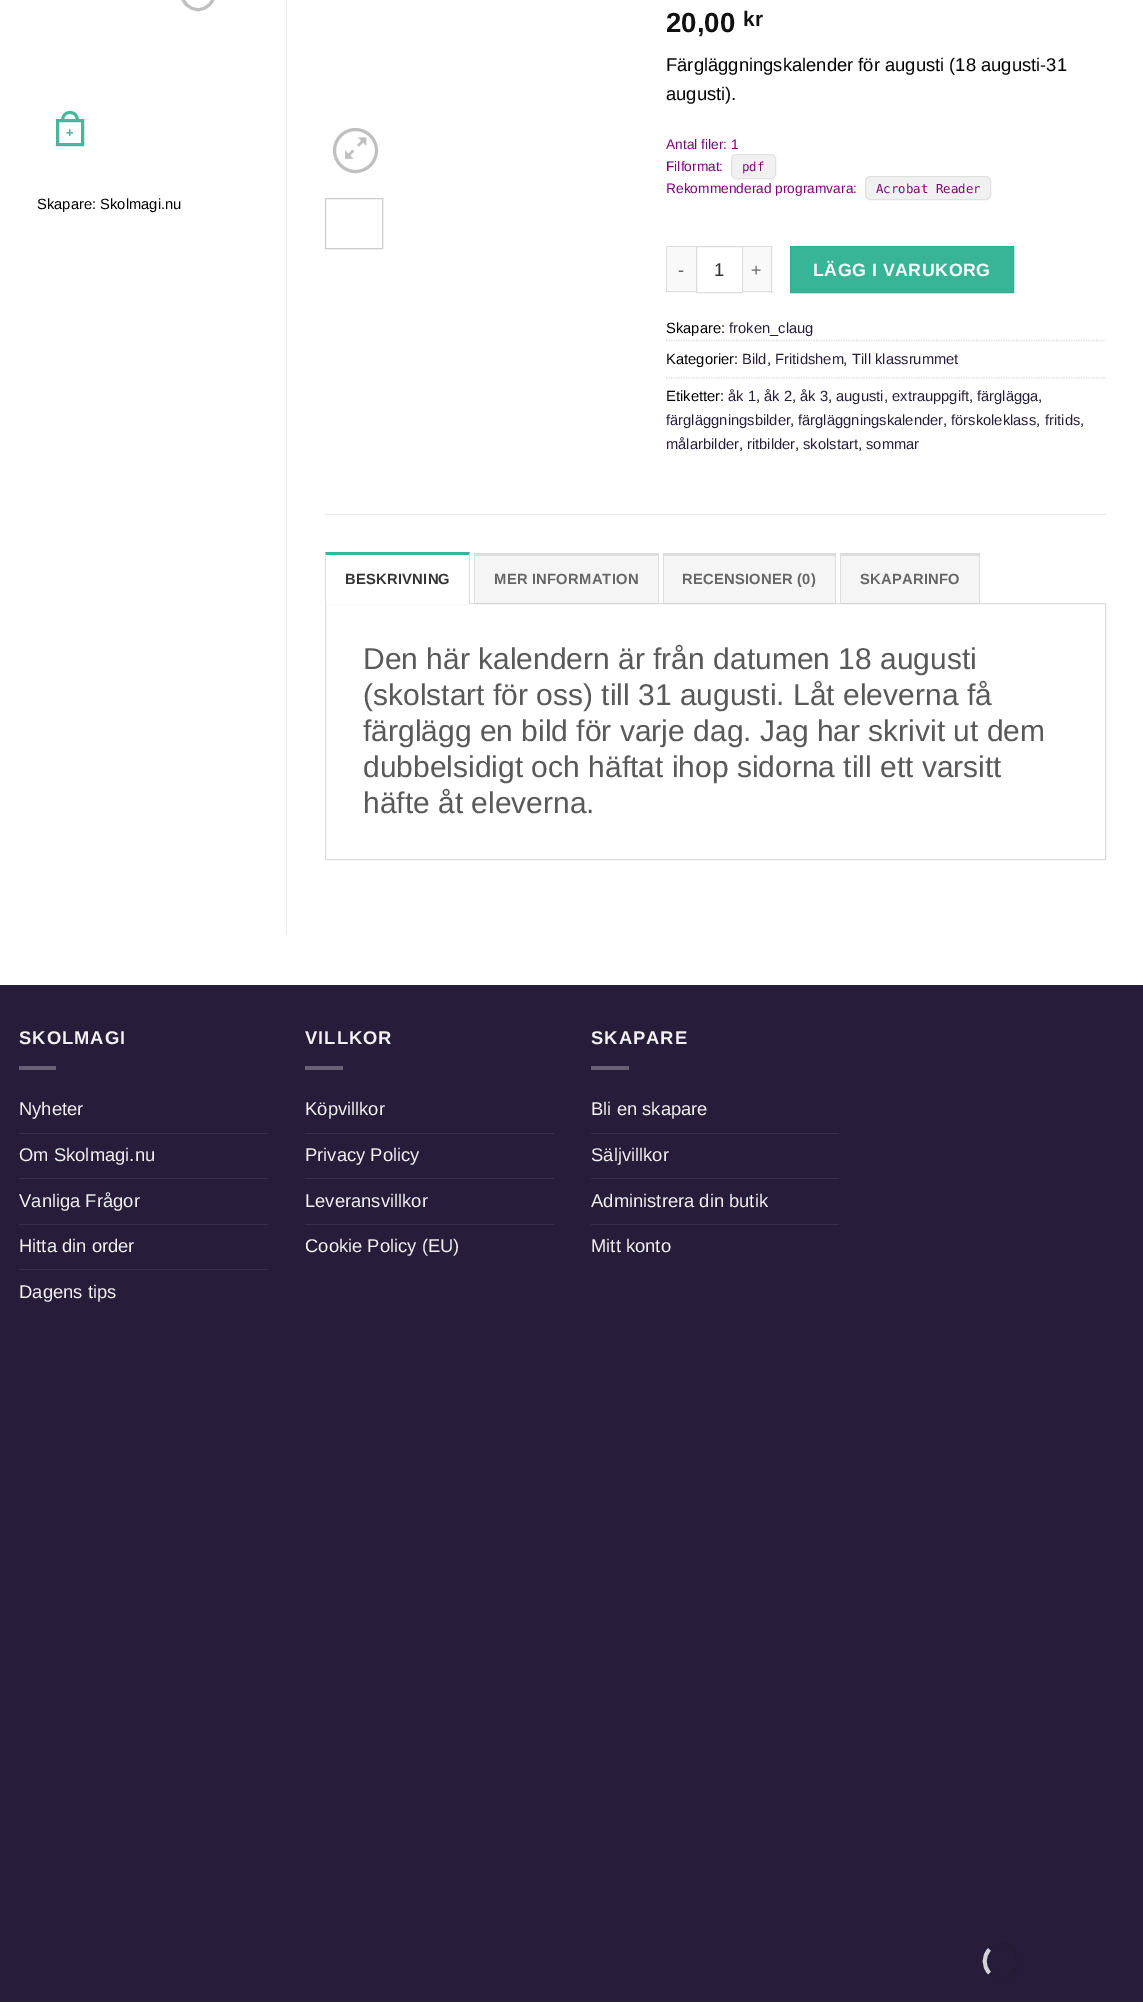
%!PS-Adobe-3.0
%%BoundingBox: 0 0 1143 2002
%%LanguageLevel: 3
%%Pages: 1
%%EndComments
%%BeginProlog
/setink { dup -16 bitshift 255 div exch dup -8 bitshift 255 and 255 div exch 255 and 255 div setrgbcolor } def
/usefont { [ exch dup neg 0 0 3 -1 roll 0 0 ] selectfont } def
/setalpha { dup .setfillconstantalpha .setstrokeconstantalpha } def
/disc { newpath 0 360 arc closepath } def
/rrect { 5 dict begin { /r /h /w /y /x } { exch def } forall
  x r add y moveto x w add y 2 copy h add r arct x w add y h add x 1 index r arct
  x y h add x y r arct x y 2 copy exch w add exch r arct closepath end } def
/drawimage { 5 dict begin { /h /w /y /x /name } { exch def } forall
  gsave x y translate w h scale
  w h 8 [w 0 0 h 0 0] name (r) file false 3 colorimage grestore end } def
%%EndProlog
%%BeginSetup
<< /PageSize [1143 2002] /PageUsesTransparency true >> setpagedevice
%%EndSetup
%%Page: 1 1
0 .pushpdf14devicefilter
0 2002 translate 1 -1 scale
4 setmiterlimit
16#FFFFFF setink
0 0 1143 2002 rectfill
16#C0C0C0 setink
3 setlinewidth
181.5 -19.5 33 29 16.5 rrect stroke
16#42B89C setink
57.5 120.5 25 24 rectstroke
70 111 moveto 76 111 79 116 79 121 curveto 61 121 lineto 61 116 64 111 70 111 curveto closepath 70 114 moveto 74.5 114 76 117.5 76 121 curveto 64 121 lineto 64 117.5 65.5 114 70 114 curveto closepath eofill
/LiberationSans-Bold 13 usefont
66 137 moveto (+) show
/LiberationSans-Regular 14.75 usefont
16#000000 setink
37 209 moveto (Skapare: Skolmagi.nu) show
16#ECECEC setink
286 0 1 935 rectfill
16#C0C0C0 setink
355.5 150.5 21 disc stroke
(img1.raw) 345 137 22 22 drawimage
16#CCCCCC setink
1 setlinewidth
325.5 198.5 57 50 rectstroke
/LiberationSans-Bold 27.5 usefont
16#111111 setink
666 32 moveto (20,00) show
/LiberationSans-Bold 21 usefont
743 26 moveto (kr) show
/LiberationSans-Regular 18.4 usefont
16#000000 setink
666 71 moveto (Färgläggningskalender för augusti \(18 augusti-31) show
666 100 moveto (augusti\).) show
/LiberationSans-Regular 13.75 usefont
16#800080 setink
666 149 moveto (Antal filer: 1) show
666 171 moveto (Filformat:) show
16#F1F1F1 setink
731.5 154.5 44 24 4.5 rrect gsave fill grestore
16#E1E1E1 setink
stroke
/DejaVuSansMono-Regular 12.4 usefont
16#800080 setink
742 171 moveto (pdf) show
/LiberationSans-Regular 13.75 usefont
666 193 moveto (Rekommenderad programvara:) show
16#F1F1F1 setink
865.5 176.5 125 23 4.5 rrect gsave fill grestore
16#E1E1E1 setink
stroke
/DejaVuSansMono-Regular 12.4 usefont
16#800080 setink
876 193 moveto (Acrobat Reader) show
[
    [667 247 29 46 16#F9F9F9]
    [666 246 30 1 16#DDDDDD]
    [666 291 30 1 16#DDDDDD]
    [666 246 1 47 16#DDDDDD]
] { aload pop setink rectfill } forall
/LiberationSans-Regular 17.8 usefont
16#666666 setink
678 276 moveto 0.5 0 (-) ashow
16#DDDDDD setink
696.5 246.5 46 46 rectstroke
/LiberationSans-Regular 18.4 usefont
16#333333 setink
714 276 moveto (1) show
[
    [743 247 30 46 16#F9F9F9]
    [743 246 30 1 16#DDDDDD]
    [771 246 1 47 16#DDDDDD]
    [743 291 30 1 16#DDDDDD]
] { aload pop setink rectfill } forall
/LiberationSans-Regular 17.8 usefont
16#666666 setink
751 276 moveto 0.5 0 (+) ashow
16#38B497 setink
790.5 246.5 moveto 1013.5 246.5 lineto 1013.5 292.5 lineto 790.5 292.5 lineto closepath gsave fill grestore
16#35AB8F setink
stroke
/LiberationSans-Bold 17.8 usefont
16#FFFFFF setink
813 276 moveto 0.5 0 (LÄGG I VARUKORG) ashow
/LiberationSans-Regular 14.75 usefont
16#000000 setink
666 333 moveto (Skapare:) show
16#271D3B setink
729 333 moveto (froken_claug) show
16#DDDDDD setink
1.2 setlinewidth
[1.25 1.25] 0 setdash
666 340.5 moveto 1106 340.5 lineto stroke
16#000000 setink
666 364 moveto (Kategorier:) show
16#271D3B setink
742 364 moveto (Bild) show
16#000000 setink
767 364 moveto (,) show
16#271D3B setink
775 364 moveto (Fritidshem) show
16#000000 setink
843 364 moveto (,) show
16#271D3B setink
852 364 moveto (Till klassrummet) show
16#DDDDDD setink
666 378 moveto 1106 378 lineto stroke
16#000000 setink
666 401 moveto (Etiketter:) show
16#271D3B setink
728 401 moveto (åk 1) show
16#000000 setink
756 401 moveto (,) show
16#271D3B setink
764 401 moveto (åk 2) show
16#000000 setink
792 401 moveto (,) show
16#271D3B setink
800 401 moveto (åk 3) show
16#000000 setink
828 401 moveto (,) show
16#271D3B setink
836 401 moveto (augusti) show
16#000000 setink
884 401 moveto (,) show
16#271D3B setink
892 401 moveto (extrauppgift) show
16#000000 setink
969 401 moveto (,) show
16#271D3B setink
977 401 moveto (färglägga) show
16#000000 setink
1038 401 moveto (,) show
16#271D3B setink
666 425 moveto (färgläggningsbilder) show
16#000000 setink
790 425 moveto (,) show
16#271D3B setink
798 425 moveto (färgläggningskalender) show
16#000000 setink
943 425 moveto (,) show
16#271D3B setink
951 425 moveto (förskoleklass) show
16#000000 setink
1036 425 moveto (,) show
16#271D3B setink
1045 425 moveto (fritids) show
16#000000 setink
1080 425 moveto (,) show
16#271D3B setink
666 449 moveto (målarbilder) show
16#000000 setink
739 449 moveto (,) show
16#271D3B setink
747 449 moveto (ritbilder) show
16#000000 setink
795 449 moveto (,) show
16#271D3B setink
803 449 moveto (skolstart) show
16#000000 setink
858 449 moveto (,) show
16#271D3B setink
866 449 moveto (sommar) show
16#ECECEC setink
325 514 781 1 rectfill
16#DDDDDD setink
1 setlinewidth
[] 0 setdash
325.5 603.5 780 256 rectstroke
16#FFFFFF setink
325 603 145 1 rectfill
16#38B497 setink
325 552 moveto 470 552 lineto 469 555 lineto 326 555 lineto closepath fill
16#DDDDDD setink
470 552 moveto 470 604 lineto 469 604 lineto 469 555 lineto closepath fill
325 604 moveto 325 552 lineto 326 555 lineto 326 604 lineto closepath fill
/LiberationSans-Bold 14.75 usefont
16#333333 setink
345 584 moveto 0.25 0 (BESKRIVNING) ashow
0.04 setalpha
[
    [475 556 183 48 16#000000]
] { aload pop setink rectfill } forall
1 setalpha
[
    [474 553 185 3 16#DDDDDD]
    [658 553 1 51 16#DDDDDD]
    [474 553 1 51 16#DDDDDD]
] { aload pop setink rectfill } forall
16#666666 setink
494 584 moveto 0.25 0 (MER INFORMATION) ashow
0.04 setalpha
[
    [664 556 171 48 16#000000]
] { aload pop setink rectfill } forall
1 setalpha
[
    [663 553 173 3 16#DDDDDD]
    [835 553 1 51 16#DDDDDD]
    [663 553 1 51 16#DDDDDD]
] { aload pop setink rectfill } forall
16#666666 setink
682 584 moveto 0.25 0 (RECENSIONER \(0\)) ashow
0.04 setalpha
[
    [841 556 138 48 16#000000]
] { aload pop setink rectfill } forall
1 setalpha
[
    [840 553 140 3 16#DDDDDD]
    [979 553 1 51 16#DDDDDD]
    [840 553 1 51 16#DDDDDD]
] { aload pop setink rectfill } forall
16#666666 setink
860 584 moveto 0.25 0 (SKAPARINFO) ashow
/LiberationSans-Regular 30 usefont
16#595959 setink
[
    [(Den här kalendern är från datumen 18 augusti) 363 669]
    [(\(skolstart för oss\) till 31 augusti. Låt eleverna få) 363 705]
    [(färglägg en bild för varje dag. Jag har skrivit ut dem) 363 741]
    [(dubbelsidigt och häftat ihop sidorna till ett varsitt) 363 777]
    [(häfte åt eleverna.) 363 813]
] { aload pop moveto show } forall
16#271D3B setink
0 986 1143 1016 rectfill
16#251C38 setink
0 985 1143 1 rectfill
/LiberationSans-Bold 18.4 usefont
16#F1F1F1 setink
19 1044 moveto 1 0 (SKOLMAGI) ashow
16#686176 setink
19 1066 37 4 rectfill
/LiberationSans-Regular 18.4 usefont
16#F1F1F1 setink
19 1115 moveto (Nyheter) show
16#382F4B setink
19 1133 249 1 rectfill
16#F1F1F1 setink
19 1161 moveto (Om Skolmagi.nu) show
16#382F4B setink
19 1178 249 1 rectfill
16#F1F1F1 setink
19 1207 moveto (Vanliga Frågor) show
16#382F4B setink
19 1224 249 1 rectfill
16#F1F1F1 setink
19 1252 moveto (Hitta din order) show
16#382F4B setink
19 1269 249 1 rectfill
16#F1F1F1 setink
19 1298 moveto (Dagens tips) show
/LiberationSans-Bold 18.4 usefont
305 1044 moveto 1 0 (VILLKOR) ashow
16#686176 setink
305 1066 38 4 rectfill
/LiberationSans-Regular 18.4 usefont
16#F1F1F1 setink
305 1115 moveto (Köpvillkor) show
16#382F4B setink
305 1133 249 1 rectfill
16#F1F1F1 setink
305 1161 moveto (Privacy Policy) show
16#382F4B setink
305 1178 249 1 rectfill
16#F1F1F1 setink
305 1207 moveto (Leveransvillkor) show
16#382F4B setink
305 1224 249 1 rectfill
16#F1F1F1 setink
305 1252 moveto (Cookie Policy \(EU\)) show
/LiberationSans-Bold 18.4 usefont
591 1044 moveto 1 0 (SKAPARE) ashow
16#686176 setink
591 1066 38 4 rectfill
/LiberationSans-Regular 18.4 usefont
16#F1F1F1 setink
591 1115 moveto (Bli en skapare) show
16#382F4B setink
591 1133 248 1 rectfill
16#F1F1F1 setink
591 1161 moveto (Säljvillkor) show
16#382F4B setink
591 1178 248 1 rectfill
16#F1F1F1 setink
591 1207 moveto (Administrera din butik) show
16#382F4B setink
591 1224 248 1 rectfill
16#F1F1F1 setink
591 1252 moveto (Mitt konto) show
16#241B36 setink
3.8 setlinewidth
989.5 1949.5 moveto 993.5 1945.5 999 1943.5 1004.5 1944.5 curveto 1024.5 1948.5 1021.5 1978 1001 1978 curveto 997 1978 992.5 1976.5 989.5 1973 curveto stroke
16#D4D2D8 setink
989.5 1973 moveto 983 1966.5 983 1956 989.5 1949.5 curveto stroke
.poppdf14devicefilter showpage
%%EOF
